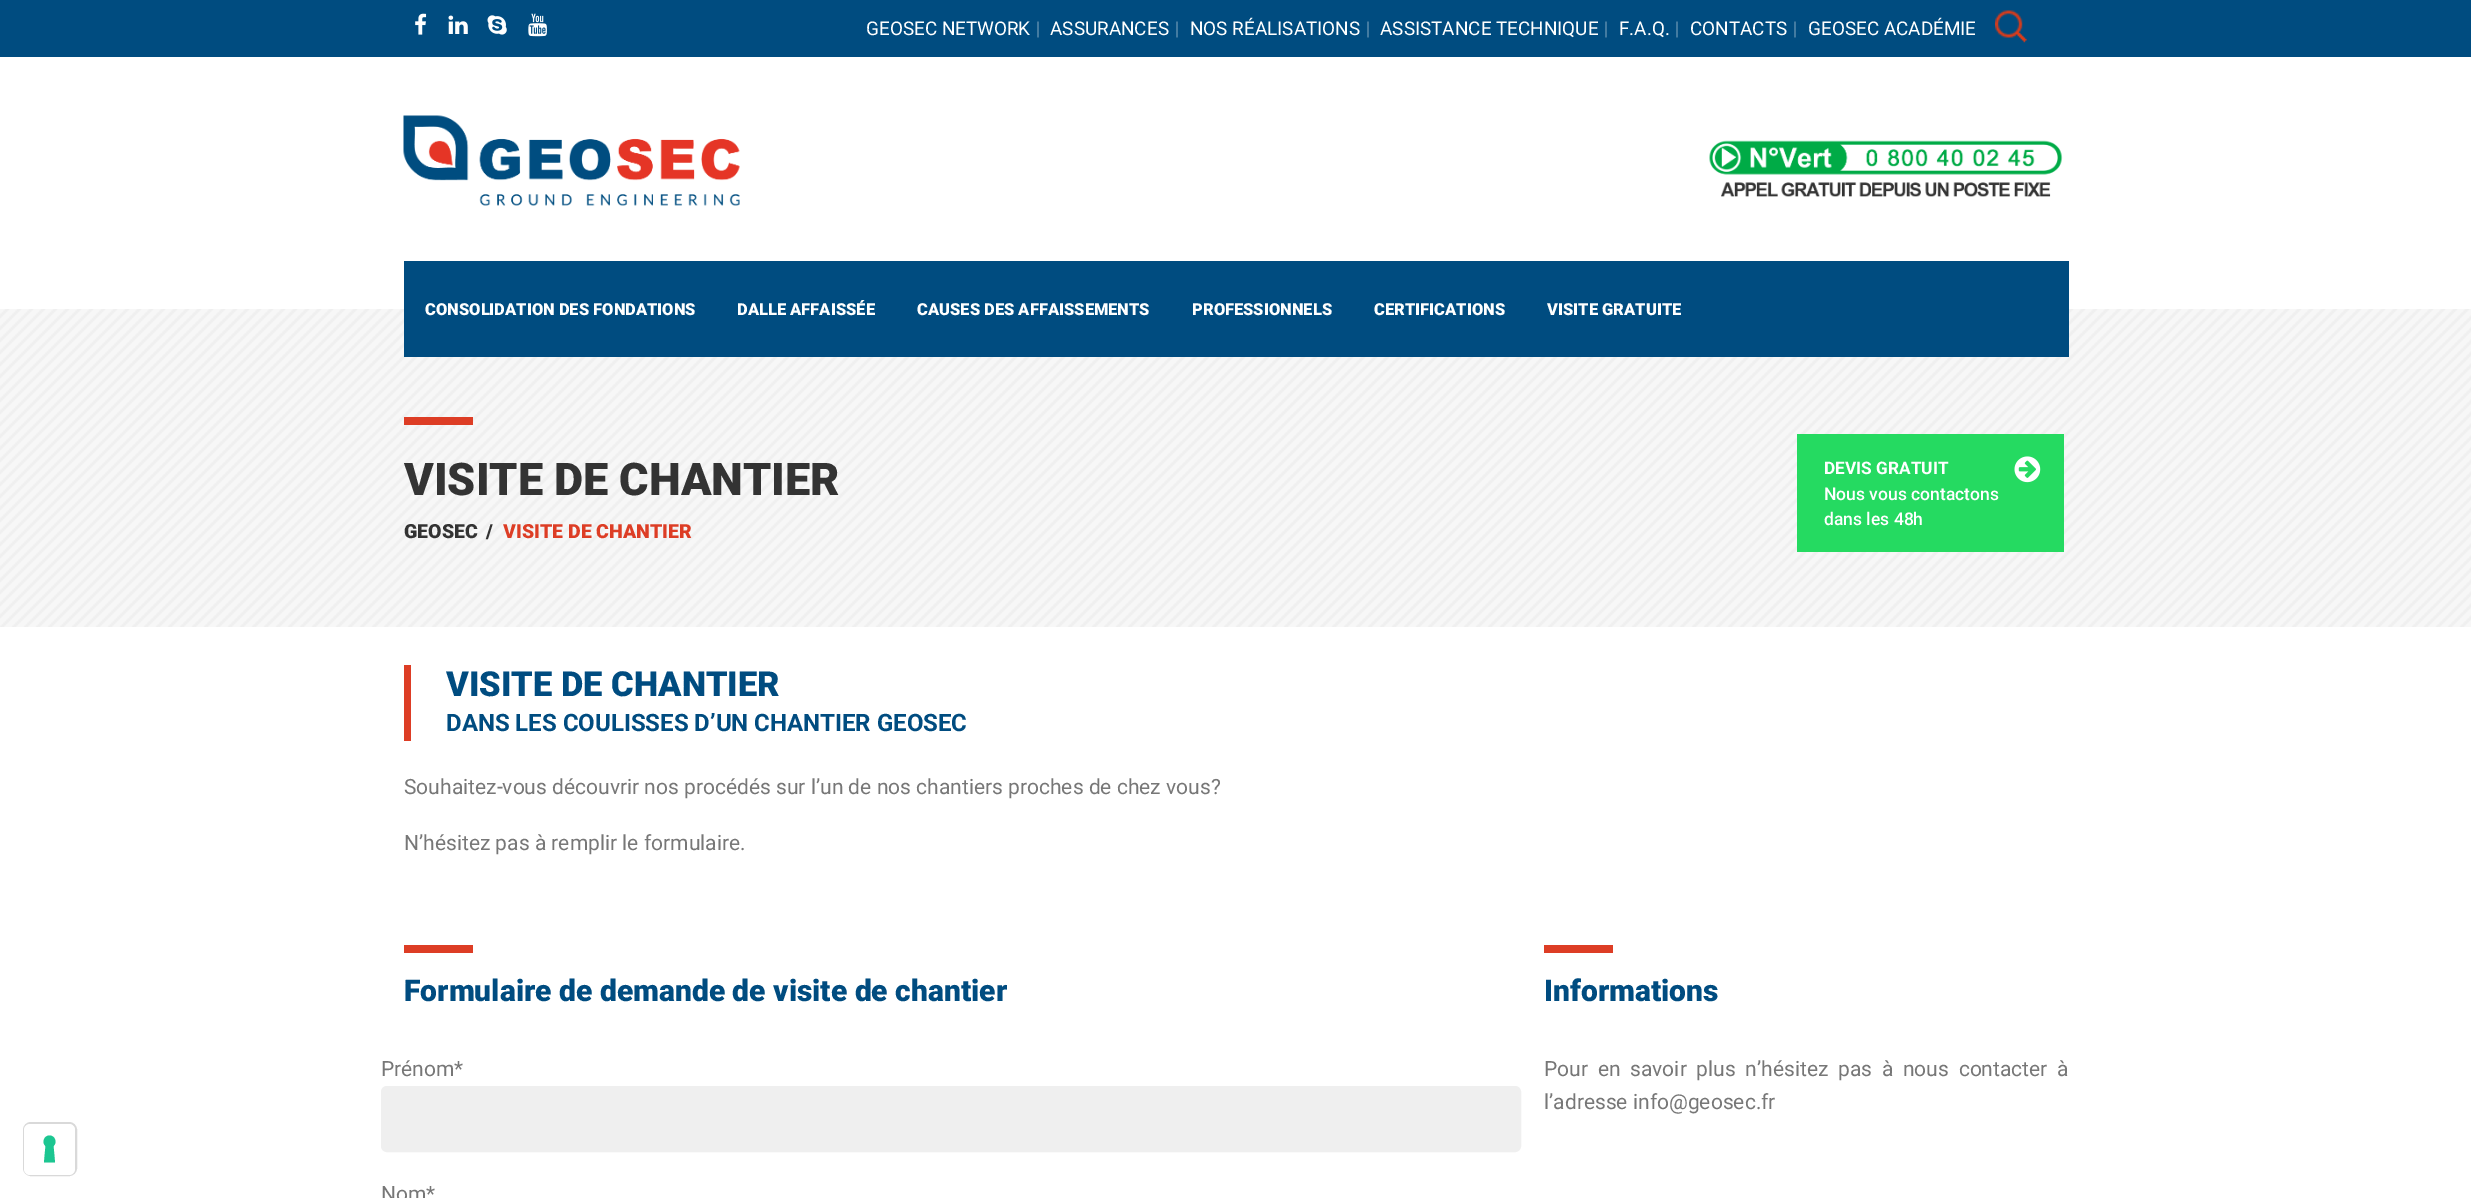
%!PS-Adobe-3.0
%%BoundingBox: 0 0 2471 1198
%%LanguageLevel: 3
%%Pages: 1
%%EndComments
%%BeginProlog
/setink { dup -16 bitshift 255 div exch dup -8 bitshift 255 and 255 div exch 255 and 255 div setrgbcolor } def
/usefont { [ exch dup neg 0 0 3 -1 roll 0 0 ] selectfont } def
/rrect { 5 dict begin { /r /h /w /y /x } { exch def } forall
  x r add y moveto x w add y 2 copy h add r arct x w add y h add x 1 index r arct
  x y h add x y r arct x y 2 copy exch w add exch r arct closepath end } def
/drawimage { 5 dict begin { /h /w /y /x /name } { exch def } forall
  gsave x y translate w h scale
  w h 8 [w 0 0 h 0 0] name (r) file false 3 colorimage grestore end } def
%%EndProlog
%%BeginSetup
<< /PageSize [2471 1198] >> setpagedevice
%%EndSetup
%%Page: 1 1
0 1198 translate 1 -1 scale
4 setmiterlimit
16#FFFFFF setink
0 0 2471 1198 rectfill
16#D9D9D9 setink
2 setlinewidth
24 1123 52 52 7 rrect stroke
16#FFFFFF setink
24 1124 51 51 6 rrect fill
16#1CC691 setink
49.5 1135.5 moveto 55 1135.5 57.5 1142.5 53.5 1146 curveto 55 1162.5 lineto 44 1162.5 lineto 45.5 1146 lineto 41.5 1142.5 44 1135.5 49.5 1135.5 curveto closepath eofill
16#004C80 setink
0 0 2471 57 rectfill
(img1.raw) 415 13 12 22 drawimage
(img2.raw) 448 15 20 19 drawimage
(img3.raw) 487 15 20 20 drawimage
(img4.raw) 528 13 19 24 drawimage
/Roboto-Regular 18.9 usefont
16#FFFFFF setink
866 35 moveto (GEOSEC NETWORK) show
/Roboto-Thin 18.9 usefont
1036 35 moveto (|) show
/Roboto-Regular 18.9 usefont
1050 35 moveto (ASSURANCES) show
/Roboto-Thin 18.9 usefont
1175 35 moveto (|) show
/Roboto-Regular 18.9 usefont
1190 35 moveto (NOS RÉALISATIONS) show
/Roboto-Thin 18.9 usefont
1366 35 moveto (|) show
/Roboto-Regular 18.9 usefont
1380 35 moveto (ASSISTANCE TECHNIQUE) show
/Roboto-Thin 18.9 usefont
1604 35 moveto (|) show
/Roboto-Regular 18.9 usefont
1619 35 moveto (F.A.Q.) show
/Roboto-Thin 18.9 usefont
1675 35 moveto (|) show
/Roboto-Regular 18.9 usefont
1690 35 moveto (CONTACTS) show
/Roboto-Thin 18.9 usefont
1793 35 moveto (|) show
/Roboto-Regular 18.9 usefont
1808 35 moveto (GEOSEC ACADÉMIE) show
(img5.raw) 1995 10 32 33 drawimage
(img6.raw) 403 115 337 91 drawimage
(img7.raw) 1709 140 354 57 drawimage
16#F7F7F7 setink
0 309 2471 318 rectfill
(img8.raw) 0 309 2471 318 drawimage
16#004C80 setink
404 261 1665 96 rectfill
/Roboto-Black 16.5 usefont
16#FFFFFF setink
[
    [(CONSOLIDATION DES FONDATIONS) 425 315]
    [(DALLE AFFAISSÉE) 737 315]
    [(CAUSES DES AFFAISSEMENTS) 917 315]
    [(PROFESSIONNELS) 1192 315]
    [(CERTIFICATIONS) 1374 315]
    [(VISITE GRATUITE) 1547 315]
] { aload pop moveto show } forall
16#DD3D25 setink
404 417 69 8 rectfill
/Roboto-Black 45 usefont
16#333333 setink
404 495 moveto (VISITE DE CHANTIER) show
/Roboto-Black 19.5 usefont
404 538 moveto (GEOSEC) show
486 538 moveto (/) show
16#DD3D25 setink
503 538 moveto (VISITE DE CHANTIER) show
16#25DA61 setink
1797 434 267 118 rectfill
/Roboto-Bold 17.25 usefont
16#FFFFFF setink
1824 474 moveto (DEVIS GRATUIT) show
/Roboto-Medium 17.5 usefont
1824 500 moveto (Nous vous contactons) show
1824 525 moveto (dans les 48h) show
(img9.raw) 2014 456 27 27 drawimage
16#DD3D25 setink
404 665 7 76 rectfill
/Roboto-Black 34.5 usefont
16#004C80 setink
446 696 moveto (VISITE DE CHANTIER) show
/Roboto-Bold 24 usefont
446 731 moveto (DANS LES COULISSES D’UN CHANTIER GEOSEC) show
/Roboto-Regular 21 usefont
16#777777 setink
404 794 moveto (Souhaitez-vous découvrir nos procédés sur l’un de nos chantiers proches de chez vous?) show
404 850 moveto (N’hésitez pas à remplir le formulaire.) show
16#DD3D25 setink
404 945 69 8 rectfill
/Roboto-Black 30 usefont
16#004C80 setink
404 1001 moveto (Formulaire de demande de visite de chantier) show
/Roboto-Regular 21 usefont
16#777777 setink
381 1076 moveto (Prénom*) show
16#EFEFEF setink
383.5 1088.5 1135 61 3.5 rrect gsave fill grestore
5 setlinewidth
stroke
16#777777 setink
381 1201 moveto (Nom*) show
16#DD3D25 setink
1544 945 69 8 rectfill
/Roboto-Black 30 usefont
16#004C80 setink
1544 1001 moveto (Informations) show
/Roboto-Regular 21 usefont
16#777777 setink
1544 1076 moveto 4.5 0 32 (Pour en savoir plus n’hésitez pas à nous contacter à) widthshow
1544 1109 moveto (l’adresse info@geosec.fr) show
showpage
%%EOF
